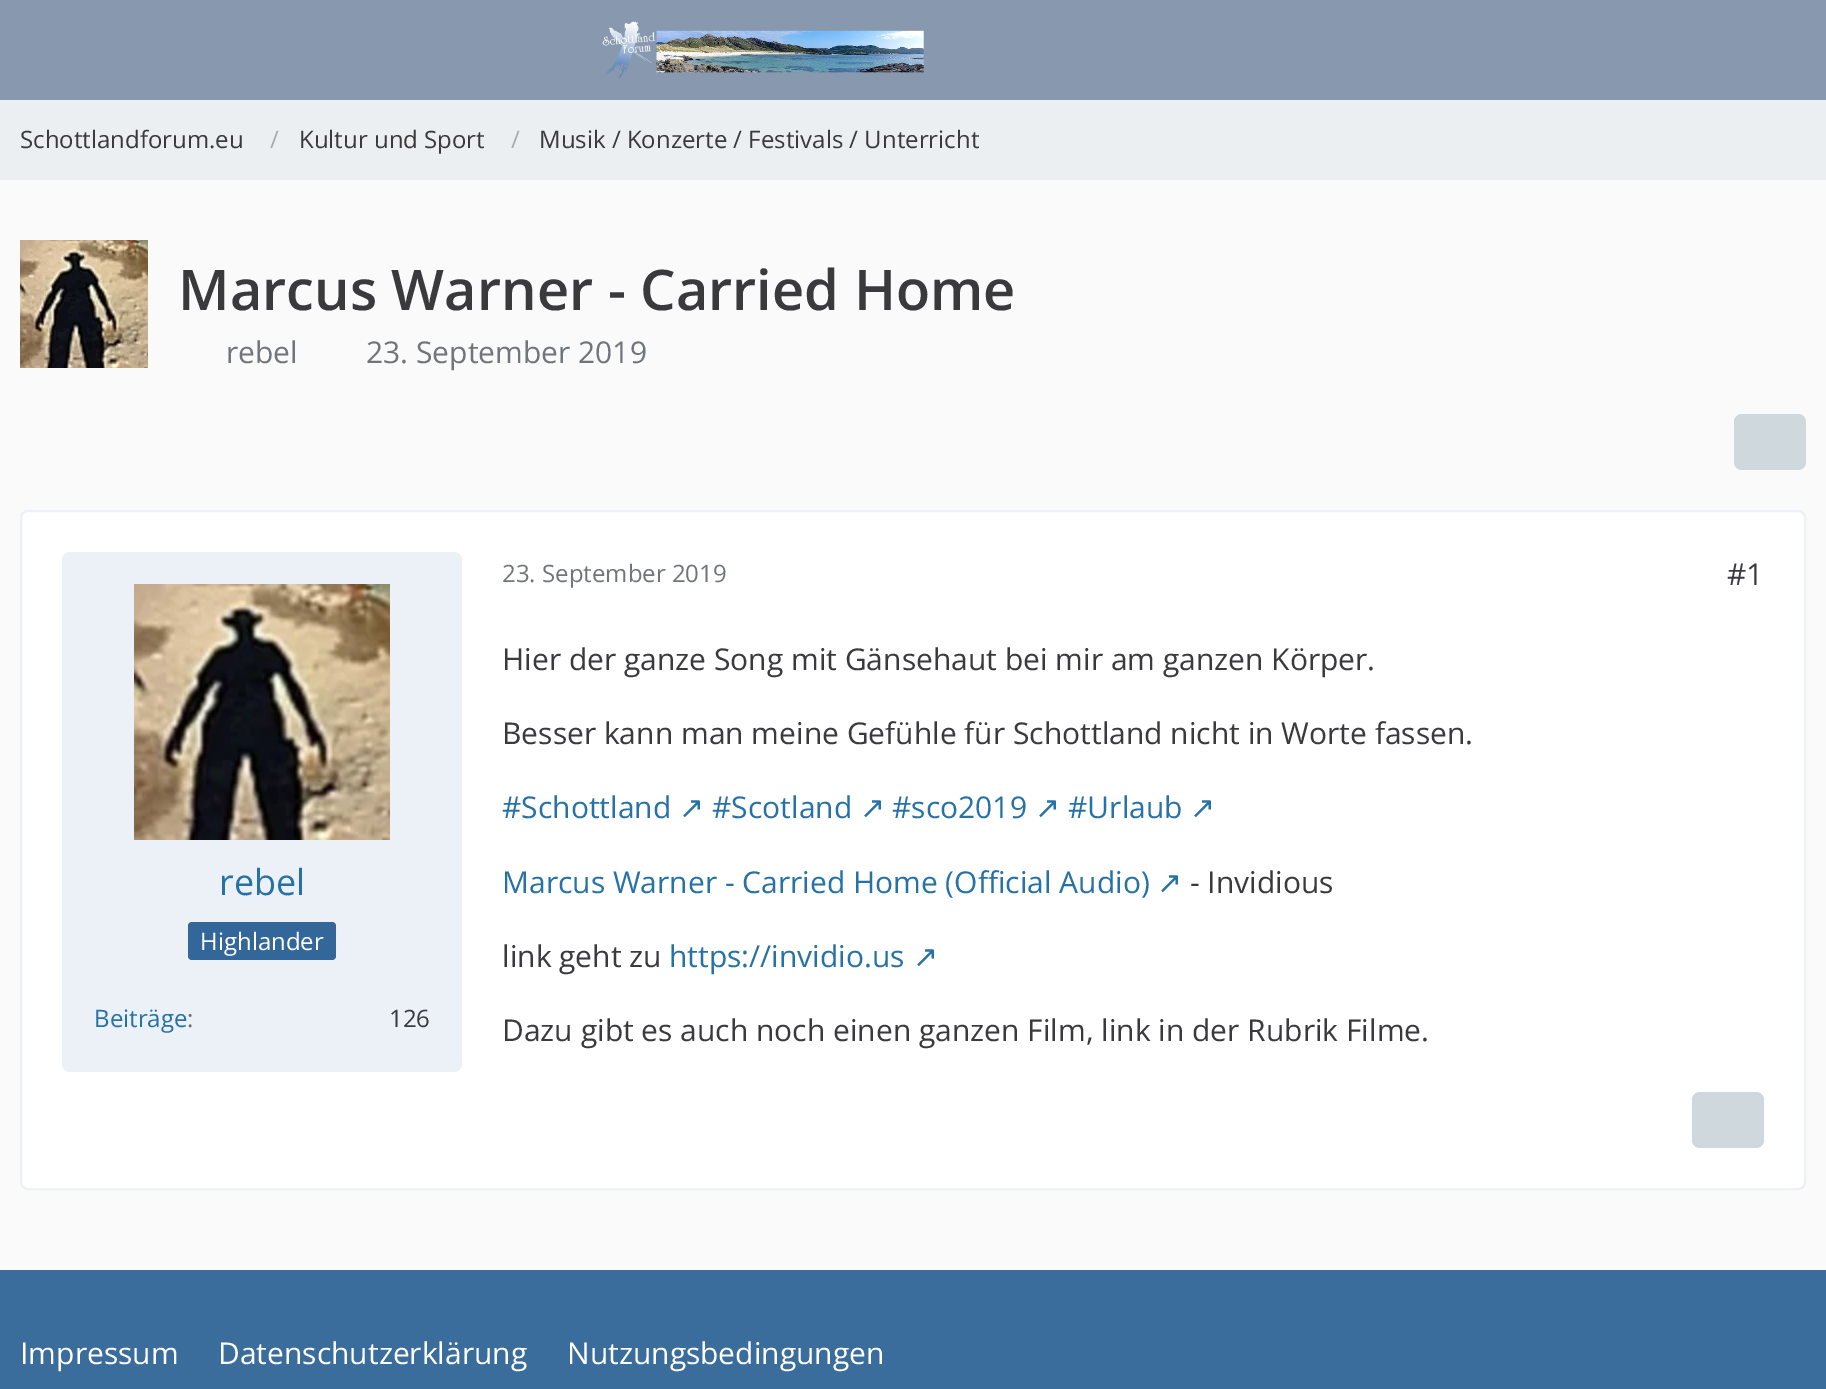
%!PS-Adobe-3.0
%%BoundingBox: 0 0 1826 1389
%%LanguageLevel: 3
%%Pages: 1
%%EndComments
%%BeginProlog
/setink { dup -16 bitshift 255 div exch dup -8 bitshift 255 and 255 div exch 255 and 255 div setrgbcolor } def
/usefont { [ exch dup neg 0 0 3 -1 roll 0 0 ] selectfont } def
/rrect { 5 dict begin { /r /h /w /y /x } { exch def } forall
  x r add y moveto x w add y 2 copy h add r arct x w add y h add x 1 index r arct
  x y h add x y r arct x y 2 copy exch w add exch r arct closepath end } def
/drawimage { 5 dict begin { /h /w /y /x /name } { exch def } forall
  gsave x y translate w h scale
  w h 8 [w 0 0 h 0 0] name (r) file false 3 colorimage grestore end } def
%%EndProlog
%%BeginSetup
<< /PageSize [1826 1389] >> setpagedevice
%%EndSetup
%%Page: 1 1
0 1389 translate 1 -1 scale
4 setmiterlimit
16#FAFAFA setink
0 0 1826 1389 rectfill
16#8898AE setink
0 0 1826 100 rectfill
(img1.raw) 602 21 322 58 drawimage
16#ECEFF1 setink
0 100 1826 80 rectfill
/OpenSans-Regular 24 usefont
16#3A3A3D setink
20 148 moveto (Schottlandforum.eu) show
16#AAAAAA setink
270 148 moveto (/) show
16#3A3A3D setink
299 148 moveto (Kultur und Sport) show
16#AAAAAA setink
511 148 moveto (/) show
16#3A3A3D setink
539 148 moveto (Musik / Konzerte / Festivals / Unterricht) show
(img2.raw) 20 240 128 128 drawimage
/OpenSans-SemiBold 56 usefont
178 310 moveto (Marcus Warner - Carried Home) show
/OpenSans-Regular 30 usefont
16#71757A setink
226 363 moveto (rebel) show
366 363 moveto (23. September 2019) show
16#CFD8DC setink
1734 414 72 56 8 rrect fill
16#FFFFFF setink
21 511 1784 678 7 rrect gsave fill grestore
16#ECF1F7 setink
2 setlinewidth
stroke
62 552 400 520 8 rrect fill
(img3.raw) 134 584 256 256 drawimage
/OpenSans-Regular 36 usefont
16#2671A6 setink
219 895 moveto (rebel) show
16#336699 setink
188 922 148 38 4 rrect fill
/OpenSans-Regular 24 usefont
16#FFFFFF setink
200 950 moveto (Highlander) show
16#2671A6 setink
94 1027 moveto (Beiträge) show
16#696D72 setink
187 1027 moveto (:) show
16#3A3A3D setink
389 1027 moveto (126) show
16#71757A setink
502 582 moveto (23. September 2019) show
/OpenSans-Regular 30 usefont
16#3A3A3D setink
[
    [(#1) 1727 585]
    [(Hier der ganze Song mit Gänsehaut bei mir am ganzen Körper.) 502 670]
    [(Besser kann man meine Gefühle für Schottland nicht in Worte fassen.) 502 744]
] { aload pop moveto show } forall
16#2671A6 setink
502 818 moveto (#Schottland) show
/DejaVuSans-Regular 30 usefont
679 818 moveto (↗) show
/OpenSans-Regular 30 usefont
712 818 moveto (#Scotland) show
/DejaVuSans-Regular 30 usefont
860 818 moveto (↗) show
/OpenSans-Regular 30 usefont
892 818 moveto (#sco2019) show
/DejaVuSans-Regular 30 usefont
1035 818 moveto (↗) show
/OpenSans-Regular 30 usefont
1068 818 moveto (#Urlaub) show
/DejaVuSans-Regular 30 usefont
1190 818 moveto (↗) show
/OpenSans-Regular 30 usefont
502 893 moveto (Marcus Warner - Carried Home \(Official Audio\)) show
/DejaVuSans-Regular 30 usefont
1157 893 moveto (↗) show
/OpenSans-Regular 30 usefont
16#3A3A3D setink
1190 893 moveto (- Invidious) show
502 967 moveto (link geht zu) show
16#2671A6 setink
669 967 moveto (https://invidio.us) show
/DejaVuSans-Regular 30 usefont
913 967 moveto (↗) show
/OpenSans-Regular 30 usefont
16#3A3A3D setink
502 1041 moveto (Dazu gibt es auch noch einen ganzen Film, link in der Rubrik Filme.) show
16#CFD8DC setink
1692 1092 72 56 8 rrect fill
16#3A6D9C setink
0 1270 1826 119 rectfill
16#FFFFFF setink
[
    [(Impressum) 20 1364]
    [(Datenschutzerklärung) 218 1364]
    [(Nutzungsbedingungen) 567 1364]
] { aload pop moveto show } forall
showpage
%%EOF
